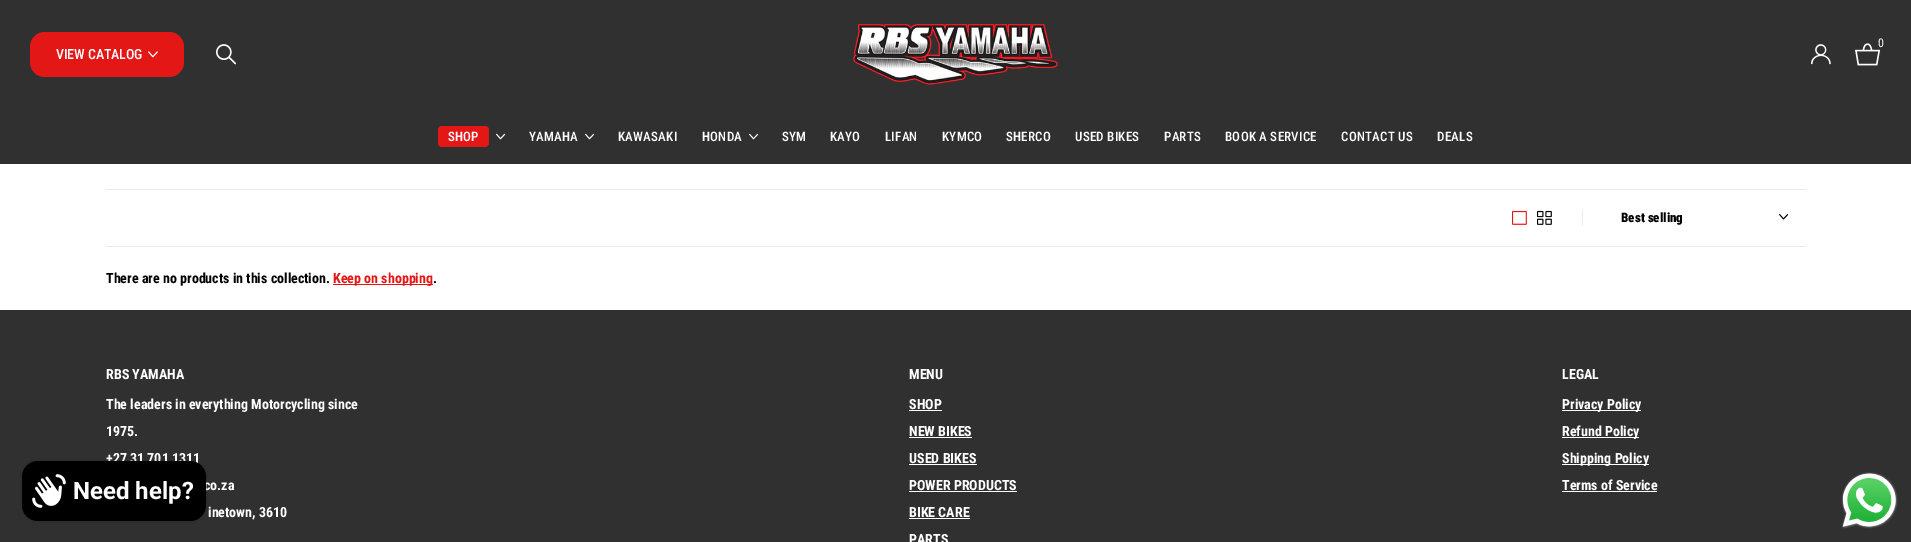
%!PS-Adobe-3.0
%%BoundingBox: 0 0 1911 542
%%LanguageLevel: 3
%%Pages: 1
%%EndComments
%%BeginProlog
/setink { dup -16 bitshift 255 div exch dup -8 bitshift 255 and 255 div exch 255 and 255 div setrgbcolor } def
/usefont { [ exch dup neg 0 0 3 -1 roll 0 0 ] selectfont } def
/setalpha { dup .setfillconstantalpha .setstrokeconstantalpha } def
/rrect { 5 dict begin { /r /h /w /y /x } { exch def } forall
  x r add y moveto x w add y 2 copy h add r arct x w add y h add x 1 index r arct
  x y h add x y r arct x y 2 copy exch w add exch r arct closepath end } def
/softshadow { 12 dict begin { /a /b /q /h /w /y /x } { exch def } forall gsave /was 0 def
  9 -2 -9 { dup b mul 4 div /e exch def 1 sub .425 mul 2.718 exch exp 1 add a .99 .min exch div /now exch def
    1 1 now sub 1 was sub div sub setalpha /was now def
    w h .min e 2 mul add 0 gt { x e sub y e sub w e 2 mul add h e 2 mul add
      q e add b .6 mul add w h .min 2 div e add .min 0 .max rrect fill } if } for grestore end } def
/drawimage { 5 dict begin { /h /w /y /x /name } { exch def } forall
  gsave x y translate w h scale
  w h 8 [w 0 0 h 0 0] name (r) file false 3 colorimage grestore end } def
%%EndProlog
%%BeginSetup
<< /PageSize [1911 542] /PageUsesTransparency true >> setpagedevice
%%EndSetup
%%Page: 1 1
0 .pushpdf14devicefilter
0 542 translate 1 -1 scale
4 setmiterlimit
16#FFFFFF setink
0 0 1911 542 rectfill
16#303030 setink
0 0 1911 164 rectfill
(img1.raw) 853 24 205 61 drawimage
(img2.raw) 1855 43 26 23 drawimage
/RobotoCondensed-Regular 12 usefont
16#FFFFFF setink
1878 47 moveto (0) show
(img3.raw) 1811 44 20 21 drawimage
16#E41717 setink
30 32 154 45 15 rrect fill
/RobotoCondensed-Medium 14 usefont
16#FFFFFF setink
56 59 moveto -0.1 0 (VIEW CATALOG) ashow
(img4.raw) 148 51 10 7 drawimage
(img5.raw) 216 44 20 21 drawimage
16#E41717 setink
438 126 51 21 4 rrect fill
/RobotoCondensed-Medium 13 usefont
16#FFFFFF setink
448 141 moveto 0.25 0 (SHOP) ashow
(img6.raw) 496 133 10 7 drawimage
529 141 moveto 0.25 0 (YAMAHA) ashow
(img6.raw) 585 133 10 7 drawimage
618 141 moveto 0.25 0 (KAWASAKI) ashow
702 141 moveto 0.25 0 (HONDA) ashow
(img6.raw) 749 133 10 7 drawimage
782 141 moveto 0.25 0 (SYM) ashow
830 141 moveto 0.25 0 (KAYO) ashow
885 141 moveto 0.25 0 (LIFAN) ashow
942 141 moveto 0.25 0 (KYMCO) ashow
1006 141 moveto 0.25 0 (SHERCO) ashow
1075 141 moveto 0.25 0 (USED BIKES) ashow
1164 141 moveto 0.25 0 (PARTS) ashow
1225 141 moveto 0.25 0 (BOOK A SERVICE) ashow
1341 141 moveto 0.25 0 (CONTACT US) ashow
1437 141 moveto 0.25 0 (DEALS) ashow
16#ECECEC setink
106 189 1700 1 rectfill
106 246 1700 1 rectfill
(img7.raw) 1512 210 15 15 drawimage
(img8.raw) 1537 210 15 15 drawimage
1582 210 1 16 rectfill
(img9.raw) 1779 214 9 6 drawimage
/RobotoCondensed-Black 13 usefont
16#000000 setink
1621 222 moveto (Best selling) show
/RobotoCondensed-Bold 14 usefont
106 283 moveto (There are no products in this collection.) show
16#E41717 setink
333 284 100 1 rectfill
333 283 moveto (Keep on shopping) show
16#000000 setink
433 283 moveto (.) show
16#303030 setink
0 310 1911 232 rectfill
16#FFFFFF setink
[
    [(RBS YAMAHA) 106 379]
    [(The leaders in everything Motorcycling since) 106 409]
    [(1975.) 106 436]
    [(+27 31 701 1311) 106 463]
    [(co.za) 204 490]
    [(inetown, 3610) 208 517]
    [(MENU) 909 379]
    [(SHOP) 909 409]
] { aload pop moveto show } forall
909 410 33 1 rectfill
909 436 moveto (NEW BIKES) show
909 437 63 1 rectfill
909 463 moveto (USED BIKES) show
909 464 68 1 rectfill
909 490 moveto (POWER PRODUCTS) show
909 491 108 1 rectfill
909 517 moveto (BIKE CARE) show
909 518 61 1 rectfill
909 544 moveto (PARTS) show
1562 379 moveto (LEGAL) show
1562 410 79 1 rectfill
1562 409 moveto (Privacy Policy) show
1562 437 77 1 rectfill
1562 436 moveto (Refund Policy) show
1562 464 87 1 rectfill
1562 463 moveto (Shipping Policy) show
1562 490 moveto (Terms of Service) show
1562 491 95 1 rectfill
16#000000 setink
22 461 184 60 16 2.5 0.15 softshadow
22 461 184 60 16 rrect fill
(img10.raw) 32 474 34 34 drawimage
/Roboto-Bold 24 usefont
16#FFFFFF setink
73 499 moveto (Need help?) show
(img11.raw) 1841 472 57 57 drawimage
.poppdf14devicefilter showpage
%%EOF
